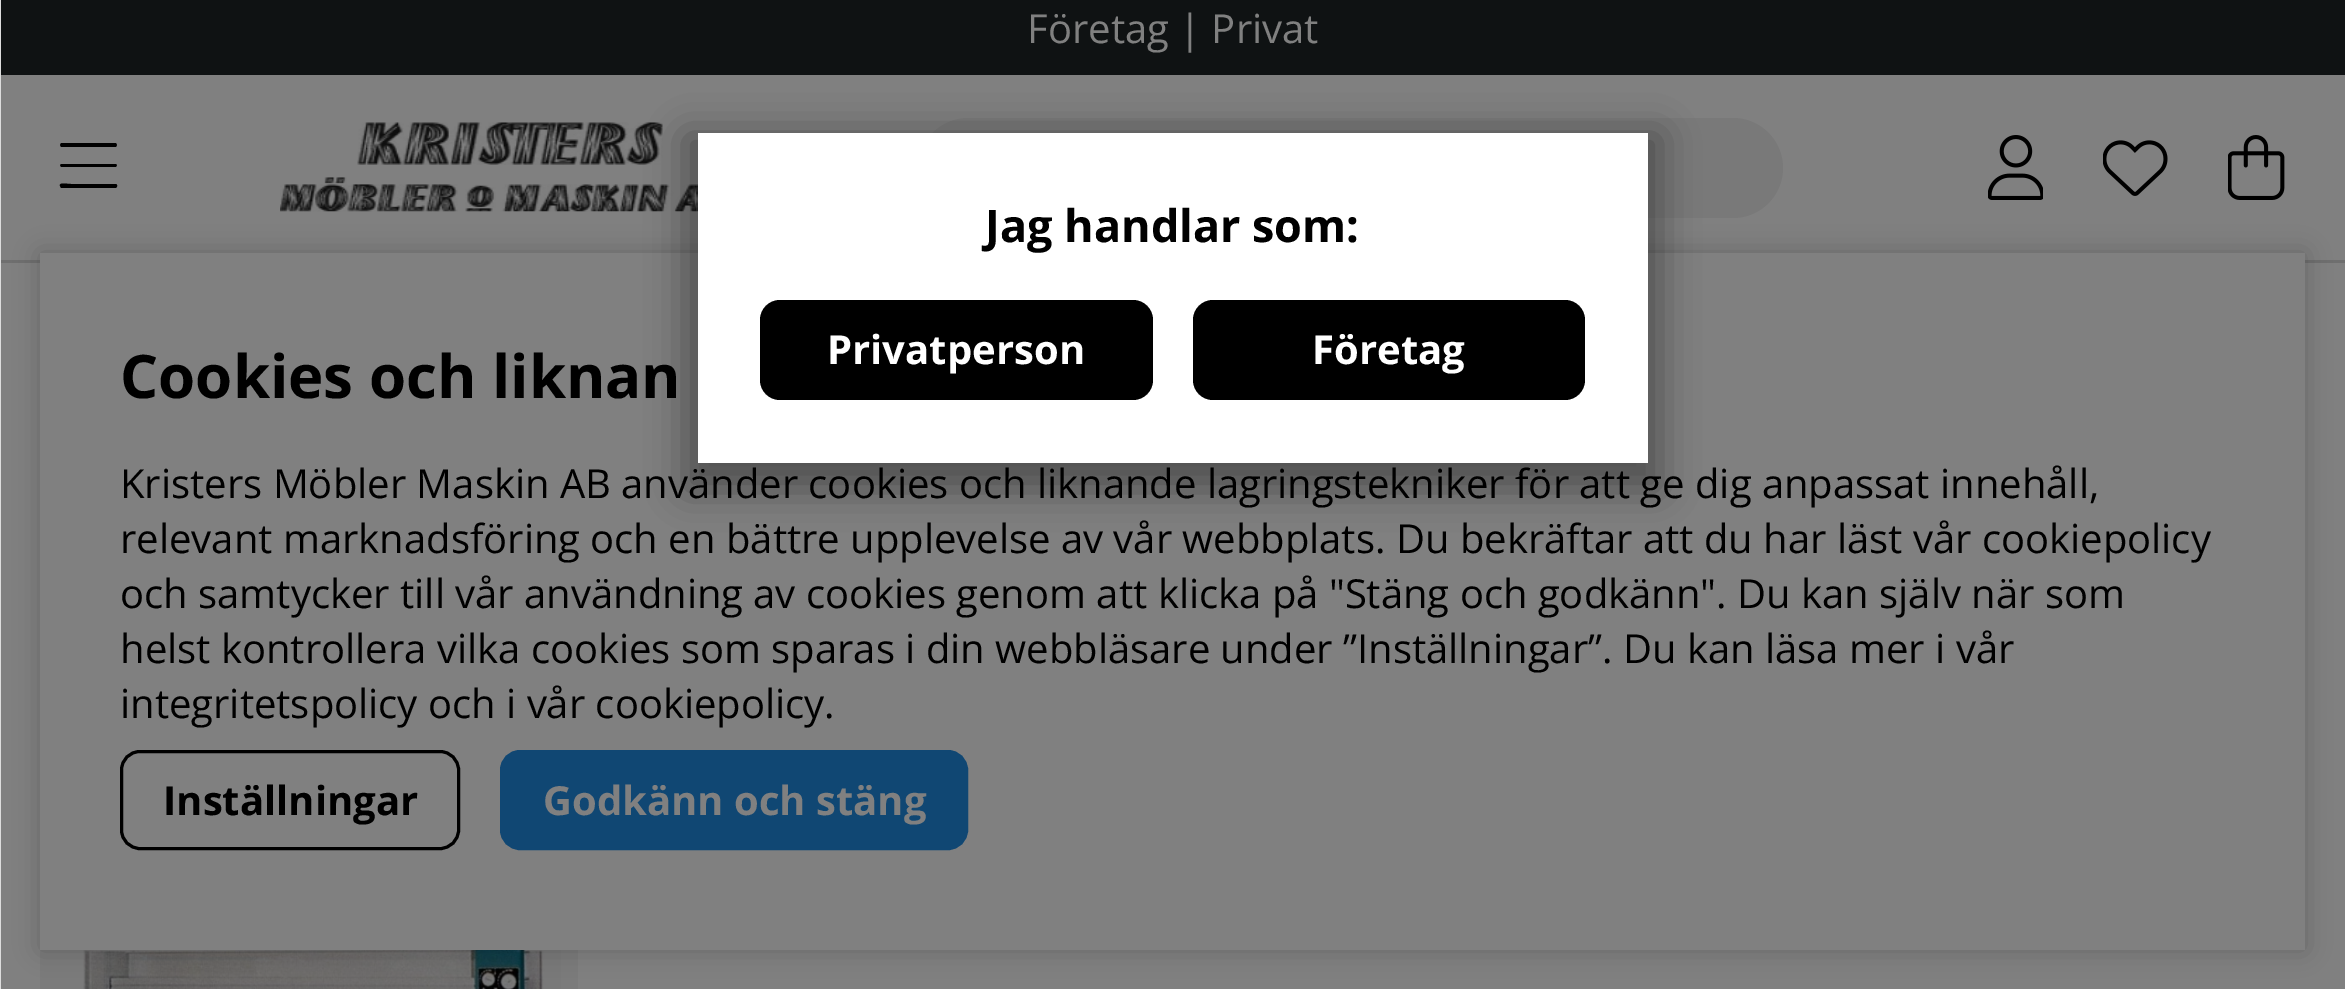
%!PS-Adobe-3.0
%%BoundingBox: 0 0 2345 989
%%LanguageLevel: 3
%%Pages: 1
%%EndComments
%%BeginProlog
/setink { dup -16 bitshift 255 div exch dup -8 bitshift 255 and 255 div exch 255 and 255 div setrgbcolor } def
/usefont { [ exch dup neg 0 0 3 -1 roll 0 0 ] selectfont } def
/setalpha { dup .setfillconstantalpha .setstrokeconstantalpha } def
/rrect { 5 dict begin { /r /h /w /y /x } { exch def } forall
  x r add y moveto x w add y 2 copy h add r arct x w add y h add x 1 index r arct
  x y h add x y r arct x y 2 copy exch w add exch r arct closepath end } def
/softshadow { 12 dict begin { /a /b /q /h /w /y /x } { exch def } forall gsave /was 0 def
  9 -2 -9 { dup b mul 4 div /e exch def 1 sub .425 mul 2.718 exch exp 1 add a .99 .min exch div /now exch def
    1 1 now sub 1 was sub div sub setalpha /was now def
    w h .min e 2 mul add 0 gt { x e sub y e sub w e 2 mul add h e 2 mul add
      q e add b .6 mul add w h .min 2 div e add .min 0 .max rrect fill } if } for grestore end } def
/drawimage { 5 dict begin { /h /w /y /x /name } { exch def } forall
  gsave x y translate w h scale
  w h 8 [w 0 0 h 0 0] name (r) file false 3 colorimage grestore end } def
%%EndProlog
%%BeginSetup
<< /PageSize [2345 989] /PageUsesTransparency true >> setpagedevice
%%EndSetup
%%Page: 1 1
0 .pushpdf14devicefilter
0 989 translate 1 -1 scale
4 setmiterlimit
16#808080 setink
0 0 2345 989 rectfill
[
    [40 950 538 39 16#7B7B7B]
    [0 260 2345 3 16#6F6F6F]
    [0 0 1 989 16#DDDDDD]
] { aload pop setink rectfill } forall
(img1.raw) 83 950 478 39 drawimage
16#0F1213 setink
1 0 2344 75 rectfill
/OpenSans-Regular 40 usefont
16#808080 setink
1027 43 moveto (Företag | Privat) show
16#000000 setink
60 145 moveto 61 143 lineto 116 143 lineto 117 145 lineto 116 147 lineto 61 147 lineto closepath 60 165 moveto 61 164 lineto 116 164 lineto 117 165 lineto 116 167 lineto 61 167 lineto closepath 115 188 moveto 61 188 lineto 60 186 lineto 59 182 66 184 71 184 curveto 116 184 lineto 118 185 117 188 115 188 curveto closepath fill
(img2.raw) 280 122 455 90 drawimage
16#797979 setink
918 118 865 100 50 rrect fill
(img3.raw) 1988 135 55 65 drawimage
(img4.raw) 2103 140 65 56 drawimage
(img5.raw) 2228 135 57 65 drawimage
16#000000 setink
40 253 2265 697 0 12.5 0.2 softshadow
16#808080 setink
40 253 2265 697 rectfill
16#000000 setink
685 135 975 355 0 19 0.35 softshadow
16#FFFFFF setink
698 133 950 330 rectfill
/OpenSans-Bold 45 usefont
16#000000 setink
985 242 moveto (Jag handlar som:) show
760 300 393 100 20 rrect fill
/OpenSans-Bold 40 usefont
16#FFFFFF setink
827 364 moveto (Privatperson) show
16#000000 setink
1193 300 392 100 20 rrect fill
16#FFFFFF setink
1312 364 moveto (Företag) show
/OpenSans-Bold 60 usefont
16#000000 setink
120 398 moveto (Cookies och liknan) show
/OpenSans-Regular 40 usefont
[
    [(Kristers Möbler Maskin AB använder cookies och liknande lagringstekniker för att ge dig anpassat innehåll,) 120 498]
    [(relevant marknadsföring och en bättre upplevelse av vår webbplats. Du bekräftar att du har läst vår cookiepolicy) 120 553]
    [(och samtycker till vår användning av cookies genom att klicka på "Stäng och godkänn". Du kan själv när som) 120 608]
    [(helst kontrollera vilka cookies som sparas i din webbläsare under ”Inställningar”. Du kan läsa mer i vår) 120 663]
    [(integritetspolicy och i vår cookiepolicy.) 120 718]
] { aload pop moveto show } forall
3 setlinewidth
121.5 751.5 337 97 18.5 rrect stroke
/OpenSans-Bold 40 usefont
163 815 moveto (Inställningar) show
16#104773 setink
501.5 751.5 465 97 18.5 rrect gsave fill grestore
stroke
16#808080 setink
543 815 moveto (Godkänn och stäng) show
.poppdf14devicefilter showpage
%%EOF
